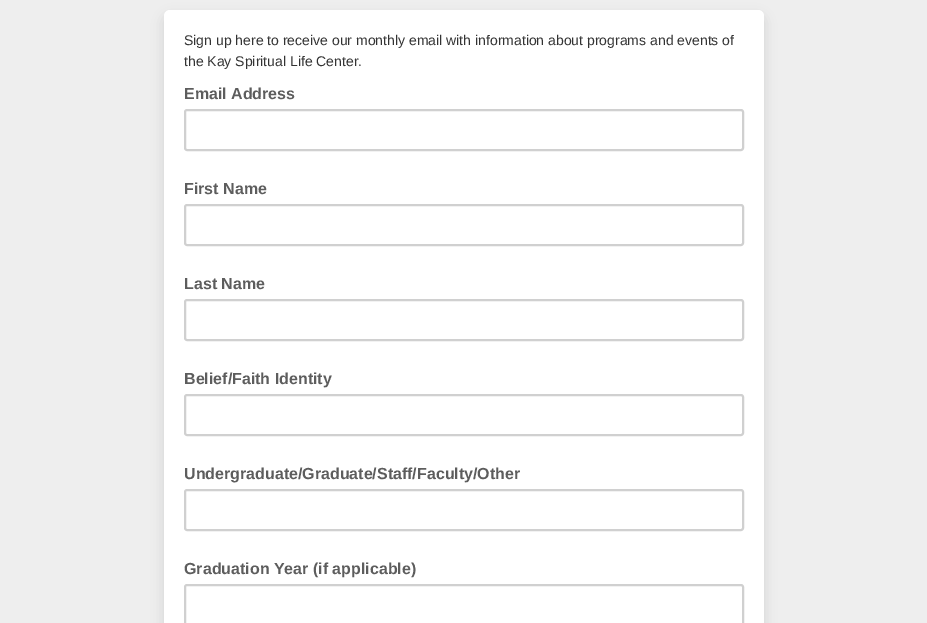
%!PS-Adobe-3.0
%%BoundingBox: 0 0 927 623
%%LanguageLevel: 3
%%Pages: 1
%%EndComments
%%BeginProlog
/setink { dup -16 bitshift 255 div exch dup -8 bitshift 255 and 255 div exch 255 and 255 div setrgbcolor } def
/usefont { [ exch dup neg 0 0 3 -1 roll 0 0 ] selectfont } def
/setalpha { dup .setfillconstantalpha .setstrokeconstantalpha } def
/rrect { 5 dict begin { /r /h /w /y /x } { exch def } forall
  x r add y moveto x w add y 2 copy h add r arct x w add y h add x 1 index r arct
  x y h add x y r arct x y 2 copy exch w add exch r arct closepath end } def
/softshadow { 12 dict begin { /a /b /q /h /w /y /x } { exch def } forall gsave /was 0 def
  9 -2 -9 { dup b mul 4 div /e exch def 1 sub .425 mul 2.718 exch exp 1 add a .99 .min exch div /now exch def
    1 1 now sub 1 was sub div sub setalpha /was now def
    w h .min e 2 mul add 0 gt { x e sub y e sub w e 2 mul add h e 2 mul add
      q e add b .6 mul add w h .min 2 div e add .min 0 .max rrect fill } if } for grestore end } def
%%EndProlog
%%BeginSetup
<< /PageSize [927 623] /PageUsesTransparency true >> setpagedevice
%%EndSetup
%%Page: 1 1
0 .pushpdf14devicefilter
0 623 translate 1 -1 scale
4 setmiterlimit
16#EEEEEE setink
0 0 927 623 rectfill
16#0D1216 setink
164 16 600 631 6 6 0.12 softshadow
16#FFFFFF setink
164 10 600 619 6 rrect fill
/LiberationSans-Regular 14 usefont
16#333333 setink
184 45 moveto (Sign up here to receive our monthly email with information about programs and events of) show
184 66 moveto (the Kay Spiritual Life Center.) show
/LiberationSans-Bold 16 usefont
16#5D5D5D setink
184 99 moveto (Email Address) show
16#D0D0D0 setink
2 setlinewidth
185 110 558 40 2 rrect stroke
16#5D5D5D setink
184 194 moveto (First Name) show
16#D0D0D0 setink
185 205 558 40 2 rrect stroke
16#5D5D5D setink
184 289 moveto (Last Name) show
16#D0D0D0 setink
185 300 558 40 2 rrect stroke
16#5D5D5D setink
184 384 moveto (Belief/Faith Identity) show
16#D0D0D0 setink
185 395 558 40 2 rrect stroke
16#5D5D5D setink
184 479 moveto (Undergraduate/Graduate/Staff/Faculty/Other) show
16#D0D0D0 setink
185 490 558 40 2 rrect stroke
16#5D5D5D setink
184 574 moveto (Graduation Year \(if applicable\)) show
16#D0D0D0 setink
185 585 558 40 2 rrect stroke
.poppdf14devicefilter showpage
%%EOF
